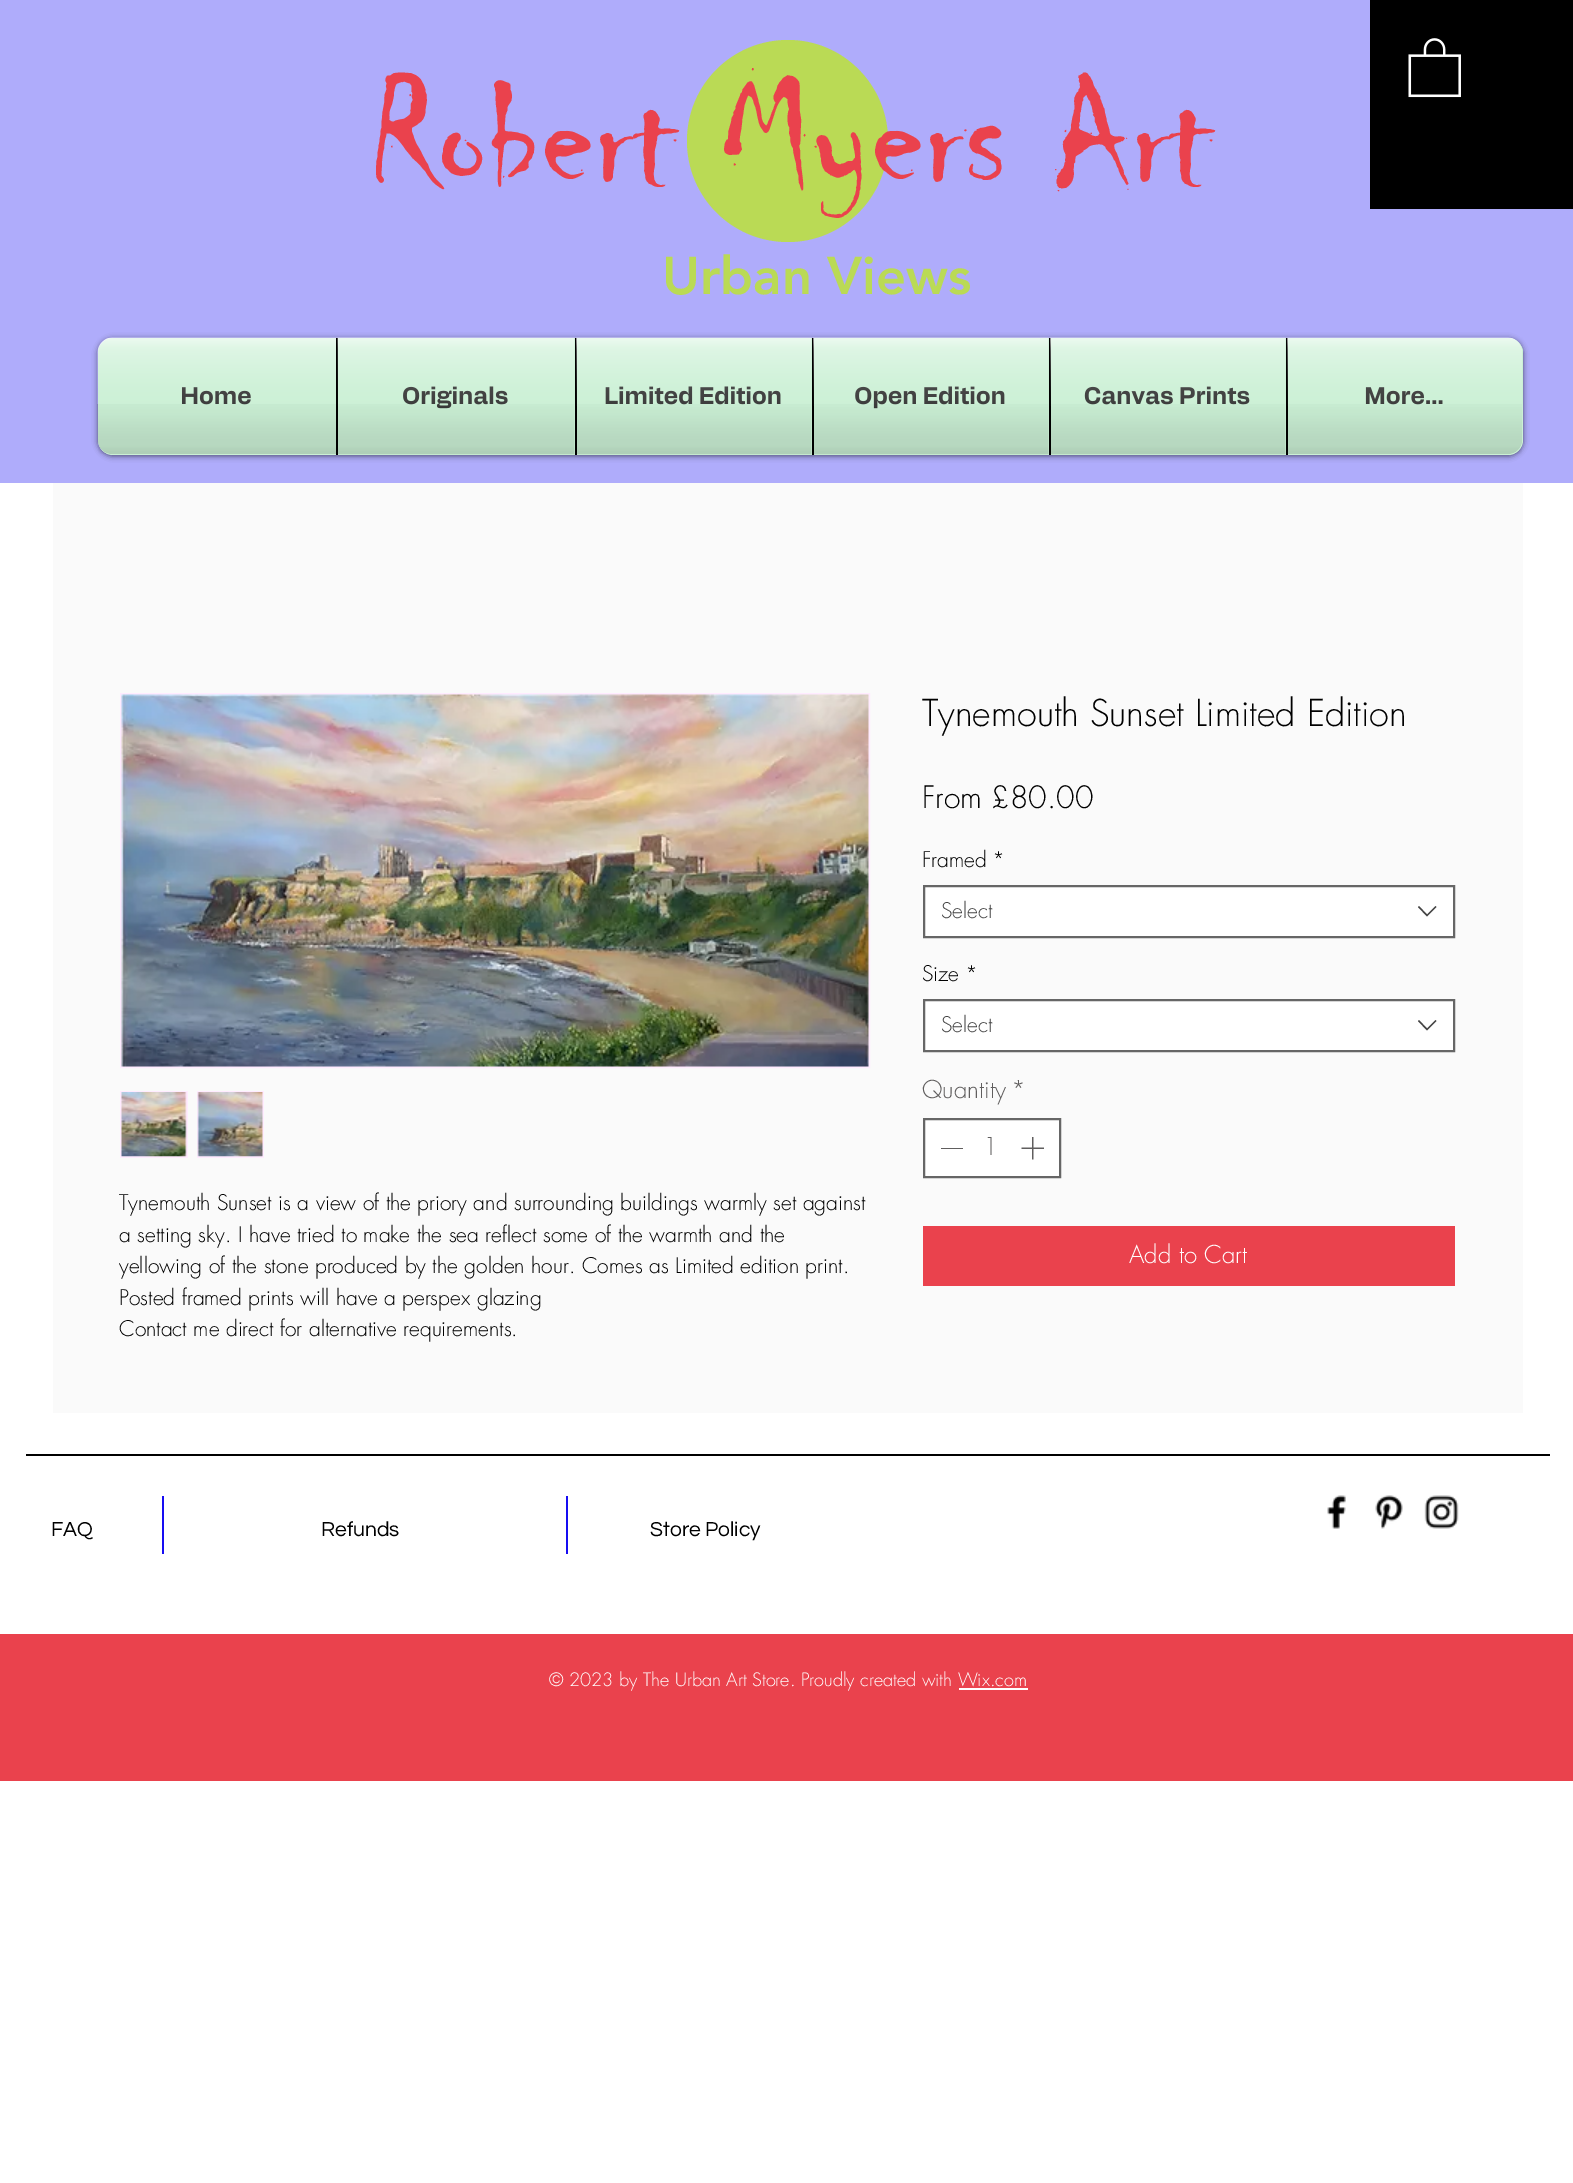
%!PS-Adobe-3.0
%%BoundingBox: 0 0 1573 2183
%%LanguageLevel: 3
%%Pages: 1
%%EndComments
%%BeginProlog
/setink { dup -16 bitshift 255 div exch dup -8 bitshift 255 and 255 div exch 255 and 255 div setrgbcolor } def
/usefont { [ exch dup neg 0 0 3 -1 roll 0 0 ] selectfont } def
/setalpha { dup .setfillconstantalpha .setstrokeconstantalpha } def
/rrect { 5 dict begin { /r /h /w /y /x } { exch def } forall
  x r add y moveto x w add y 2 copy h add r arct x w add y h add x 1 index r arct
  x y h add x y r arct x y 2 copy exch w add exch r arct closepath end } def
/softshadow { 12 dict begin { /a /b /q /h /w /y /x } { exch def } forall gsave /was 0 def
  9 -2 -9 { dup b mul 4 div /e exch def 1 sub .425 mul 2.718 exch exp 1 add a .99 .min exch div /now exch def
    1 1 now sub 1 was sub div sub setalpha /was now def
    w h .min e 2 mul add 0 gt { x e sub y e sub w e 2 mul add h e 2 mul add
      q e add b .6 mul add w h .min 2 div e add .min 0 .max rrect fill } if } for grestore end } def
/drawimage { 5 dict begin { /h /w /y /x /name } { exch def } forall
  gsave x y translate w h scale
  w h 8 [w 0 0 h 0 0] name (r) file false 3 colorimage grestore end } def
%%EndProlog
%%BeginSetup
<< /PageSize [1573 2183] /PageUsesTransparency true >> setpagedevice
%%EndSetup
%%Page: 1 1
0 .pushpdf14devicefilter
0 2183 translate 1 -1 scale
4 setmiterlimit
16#FFFFFF setink
0 0 1573 2183 rectfill
16#AFACFB setink
0 0 1573 483 rectfill
16#BADA55 setink
888 141 moveto 888 197 843 242 788 242 curveto 732 242 687 197 687 141 curveto 687 85 732 40 788 40 curveto 843 40 888 85 888 141 curveto closepath fill
/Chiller-Regular 159 usefont
16#EA424D setink
369 182 moveto (Robert Myers Art) show
/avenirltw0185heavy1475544-Black 52.5 usefont
16#BADA55 setink
662 294 moveto (Urban Views) show
16#000000 setink
98 339 1425 117 15 3 0.6 softshadow
(img1.raw) 97 337 1426 49 drawimage
(img2.raw) 98 440 10 14 drawimage
16#CBF0D5 setink
113 338 moveto 336 338 lineto 336 455 lineto 113 455 lineto 104.5 455 98 448.5 98 440 curveto 98 353 lineto 98 344.5 104.5 338 113 338 curveto closepath fill
/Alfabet-Bold 24 usefont
16#383838 setink
180 404 moveto (Home) show
(img3.raw) 97 337 239 67 drawimage
(img4.raw) 98 404 238 50 drawimage
16#CBF0D5 setink
338 338 237 117 rectfill
16#000000 setink
336 338 2 117 rectfill
16#383838 setink
402 404 moveto (Originals) show
(img5.raw) 337 337 238 69 drawimage
(img6.raw) 338 404 237 51 drawimage
16#CBF0D5 setink
577 338 235 117 rectfill
16#000000 setink
575 338 2 117 rectfill
16#383838 setink
604 404 moveto (Limited Edition) show
(img7.raw) 576 337 236 69 drawimage
(img8.raw) 577 404 235 51 drawimage
16#CBF0D5 setink
814 338 235 117 rectfill
16#000000 setink
812 338 2 117 rectfill
16#383838 setink
854 404 moveto (Open Edition) show
(img9.raw) 813 337 236 69 drawimage
(img10.raw) 814 404 235 51 drawimage
16#CBF0D5 setink
1051 338 235 117 rectfill
16#000000 setink
1049 338 2 117 rectfill
16#383838 setink
1084 404 moveto (Canvas Prints) show
(img11.raw) 1050 337 236 69 drawimage
(img12.raw) 1051 404 235 51 drawimage
16#CBF0D5 setink
1286 338 moveto 1508 338 lineto 1516.5 338 1523 344.5 1523 353 curveto 1523 440 lineto 1523 448.5 1516.5 455 1508 455 curveto 1286 455 lineto closepath fill
16#000000 setink
1286 338 2 117 rectfill
16#383838 setink
1364 404 moveto (More...) show
(img13.raw) 1287 337 235 69 drawimage
(img14.raw) 1288 404 234 50 drawimage
16#000000 setink
1370 0 203 209 rectfill
(img15.raw) 1408 38 53 60 drawimage
16#FAFAFA setink
53 483 1470 930 rectfill
16#FFEBFF setink
2 setlinewidth
121 694 748 373 rectstroke
(img16.raw) 121 694 748 373 drawimage
120 1091 68 67 rectfill
(img17.raw) 121 1092 66 65 drawimage
197 1091 67 67 rectfill
(img18.raw) 197 1092 66 65 drawimage
/futura-Light 21 usefont
16#000000 setink
[
    [(Tynemouth Sunset is a view of the priory and surrounding buildings warmly set against) 119 1210]
    [(a setting sky. I have tried to make the sea reflect some of the warmth and the) 119 1242]
    [(yellowing of the stone produced by the golden hour. Comes as Limited edition print.) 119 1273]
    [(Posted framed prints will have a perspex glazing) 119 1305]
    [(Contact me direct for alternative requirements.) 119 1336]
] { aload pop moveto show } forall
/futura-Light 36 usefont
922 726 moveto (Tynemouth Sunset Limited Edition) show
/futura-Light 30 usefont
922 808 moveto (From £80.00) show
/futura-Light 21 usefont
922 867 moveto (Framed) show
992 867 moveto (*) show
16#FFFFFF setink
924 886 moveto 1454 886 lineto 1454 937 lineto 924 937 lineto closepath gsave fill grestore
16#666666 setink
stroke
16#444444 setink
941 918 moveto (Select) show
1435.5 906 moveto 1436.5 907 lineto 1427 916.5 lineto 1418 907 lineto 1419 906 lineto 1427 914.5 lineto closepath eofill
16#000000 setink
922 981 moveto (Size) show
965 981 moveto (*) show
16#FFFFFF setink
924 1000 moveto 1454 1000 lineto 1454 1051 lineto 924 1051 lineto closepath gsave fill grestore
16#666666 setink
stroke
16#444444 setink
941 1032 moveto (Select) show
1435.5 1020 moveto 1436.5 1021 lineto 1427 1030.5 lineto 1418 1021 lineto 1419 1020 lineto 1427 1028.5 lineto closepath eofill
/futura-Light 24 usefont
16#605E5E setink
922 1098 moveto (Quantity) show
1011 1098 moveto (*) show
16#FFFFFF setink
924 1119 moveto 1060 1119 lineto 1060 1177 lineto 924 1177 lineto closepath gsave fill grestore
16#666666 setink
stroke
16#605E5E setink
941 1148 22 1 rectfill
983 1155 moveto (1) show
(img19.raw) 1021 1137 23 23 drawimage
16#EA424D setink
923 1226 532 60 rectfill
16#FFFFFF setink
1129 1263 moveto (Add to Cart) show
16#000000 setink
26 1454 1524 2 rectfill
/Questrial-Regular 21 usefont
51 1536 moveto (FAQ) show
16#170DF2 setink
162 1496 2 58 rectfill
16#000000 setink
321 1536 moveto (Refunds) show
16#170DF2 setink
566 1496 2 58 rectfill
16#000000 setink
650 1536 moveto (Store Policy) show
(img20.raw) 1327 1495 19 34 drawimage
(img21.raw) 1375 1495 28 34 drawimage
(img22.raw) 1424 1495 35 34 drawimage
16#EA424D setink
0 1634 1573 147 rectfill
/futura-Light 18 usefont
16#FFFFFF setink
549 1686 moveto (© 2023 by The Urban Art Store. Proudly created with Wix.com) show
959 1688 69 2 rectfill
.poppdf14devicefilter showpage
%%EOF
